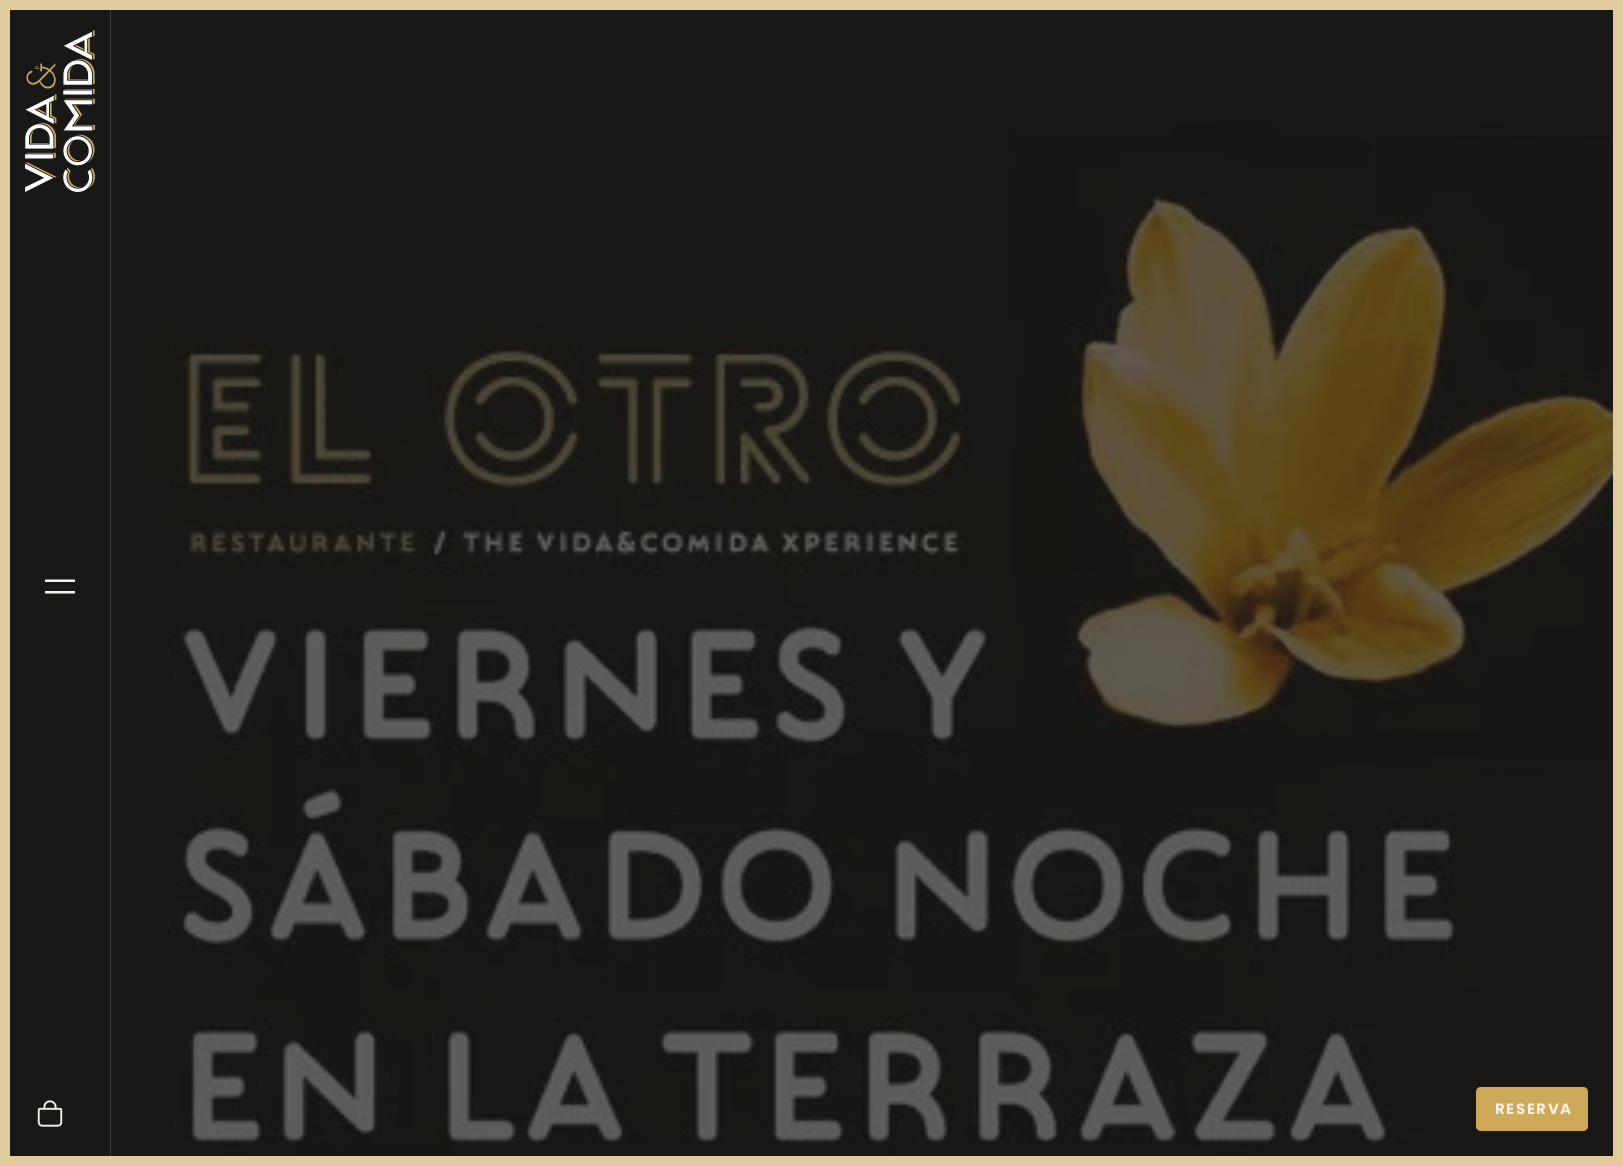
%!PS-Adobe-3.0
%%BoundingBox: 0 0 1623 1166
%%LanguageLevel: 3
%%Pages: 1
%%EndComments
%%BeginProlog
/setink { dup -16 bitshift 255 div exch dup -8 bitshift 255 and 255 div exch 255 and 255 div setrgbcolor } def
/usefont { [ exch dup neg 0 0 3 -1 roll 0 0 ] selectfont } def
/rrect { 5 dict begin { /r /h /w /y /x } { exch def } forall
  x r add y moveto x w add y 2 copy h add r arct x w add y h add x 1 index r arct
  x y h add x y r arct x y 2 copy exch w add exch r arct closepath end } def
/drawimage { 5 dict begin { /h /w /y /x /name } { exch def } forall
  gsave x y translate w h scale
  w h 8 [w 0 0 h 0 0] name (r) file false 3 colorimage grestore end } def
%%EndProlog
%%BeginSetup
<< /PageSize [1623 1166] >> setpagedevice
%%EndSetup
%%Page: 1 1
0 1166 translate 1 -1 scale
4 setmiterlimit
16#FFFFFF setink
0 0 1623 1166 rectfill
[
    [0 0 10 1166 16#E2CB9C]
    [10 0 1603 10 16#E2CB9C]
    [1613 0 10 1166 16#E2CB9C]
    [10 1156 1603 10 16#E2CB9C]
] { aload pop setink rectfill } forall
(img1.raw) 10 10 1603 1146 drawimage
16#3D3D3A setink
110 10 1 1146 rectfill
(img2.raw) 25 30 70 162 drawimage
16#F4F0E8 setink
45 591 moveto 75 591 lineto 75 593.5 lineto 45 593.5 lineto closepath 45 579.5 moveto 75 579.5 lineto 75 582 lineto 45 582 lineto closepath fill
(img3.raw) 37 1100 26 27 drawimage
16#CEA95A setink
1476 1087 112 44 5 rrect fill
/Poppins-Bold 15 usefont
16#F4F0E8 setink
1495 1114 moveto 1.5 0 (RESERVA) ashow
showpage
%%EOF
